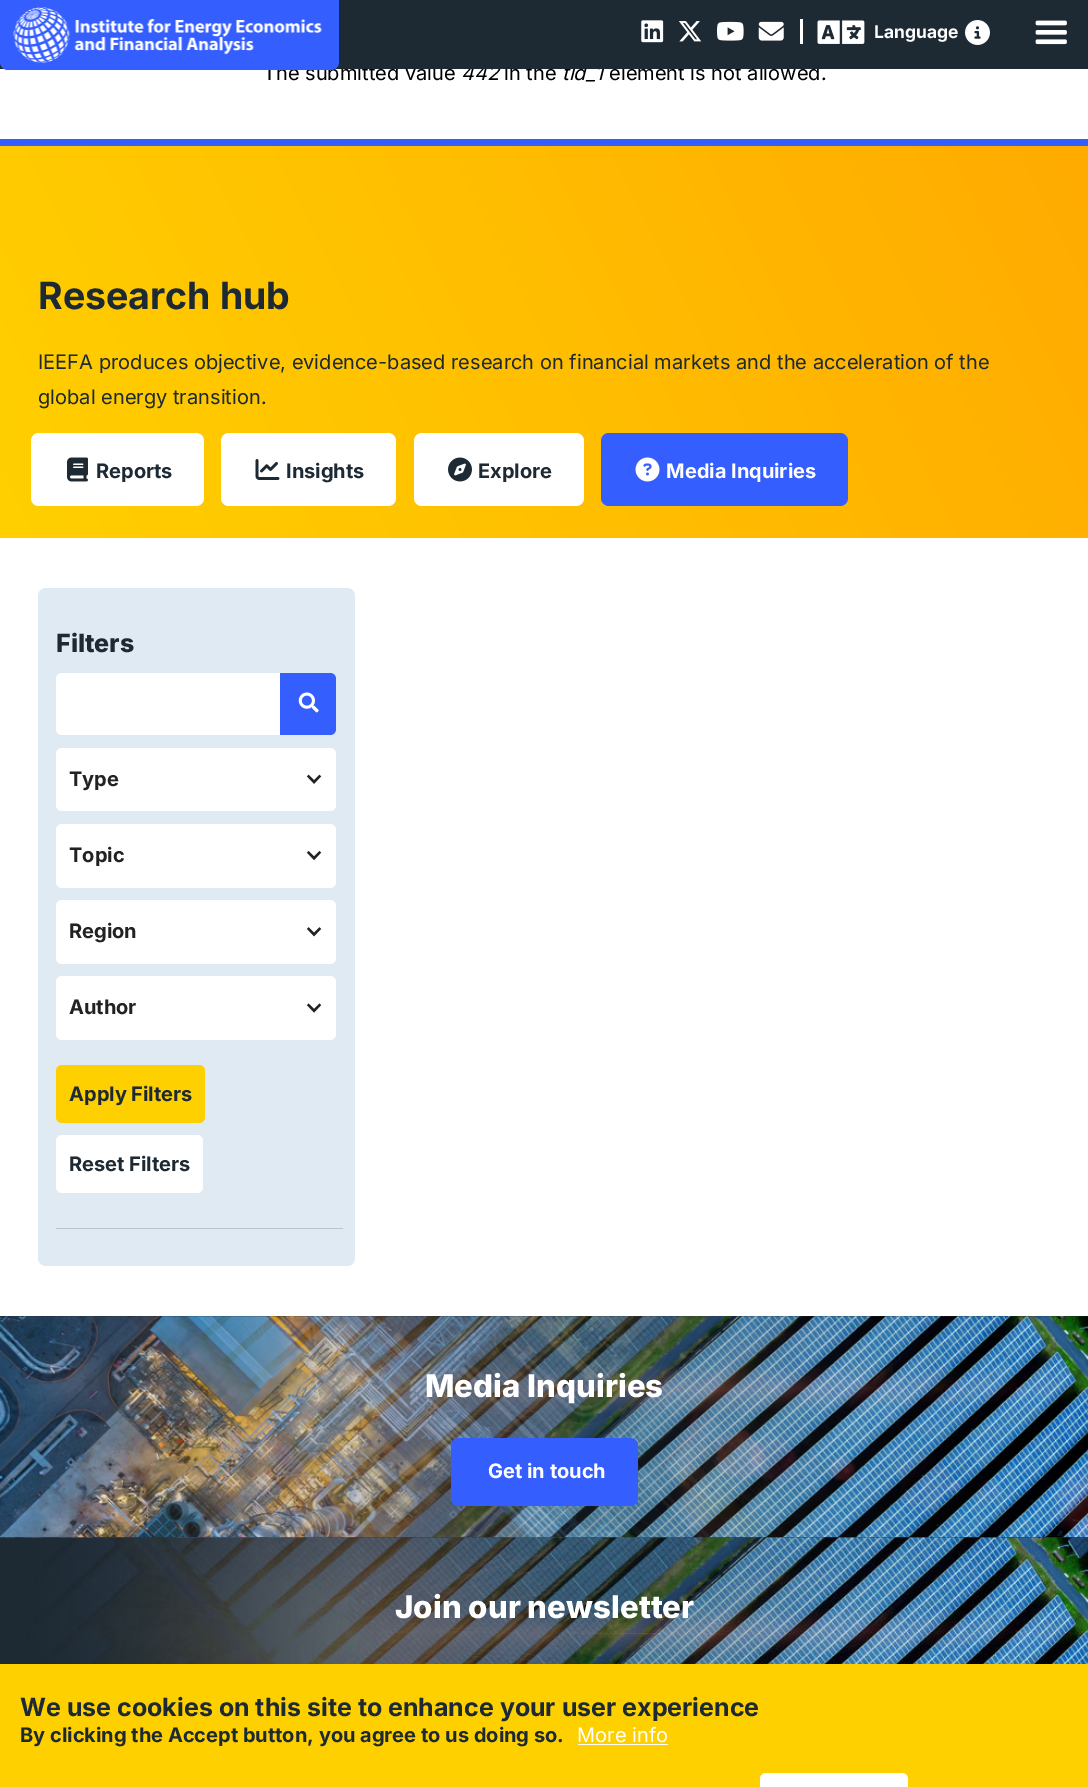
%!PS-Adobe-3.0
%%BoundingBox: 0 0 1088 1787
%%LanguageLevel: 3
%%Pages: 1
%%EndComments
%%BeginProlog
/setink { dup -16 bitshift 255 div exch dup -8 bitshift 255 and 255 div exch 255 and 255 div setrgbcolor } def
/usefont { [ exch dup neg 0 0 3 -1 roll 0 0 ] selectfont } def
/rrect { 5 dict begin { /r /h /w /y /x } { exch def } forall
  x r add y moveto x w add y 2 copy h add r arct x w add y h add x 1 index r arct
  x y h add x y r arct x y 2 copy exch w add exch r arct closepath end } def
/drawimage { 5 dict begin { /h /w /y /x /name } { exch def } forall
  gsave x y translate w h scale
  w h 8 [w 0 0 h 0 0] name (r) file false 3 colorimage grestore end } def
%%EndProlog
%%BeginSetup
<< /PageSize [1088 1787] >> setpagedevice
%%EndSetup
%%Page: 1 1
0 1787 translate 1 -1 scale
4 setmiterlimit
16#FFFFFF setink
0 0 1088 1787 rectfill
/Inter-Regular 20 usefont
16#000000 setink
263 80 moveto (The submitted value) show
/Inter-Italic 20 usefont
461 80 moveto (442) show
/Inter-Regular 20 usefont
504 80 moveto (in the) show
/Inter-Italic 20 usefont
562 80 moveto (tid_1) show
/Inter-Regular 20 usefont
609 80 moveto (element is not allowed.) show
16#1D2933 setink
0 0 1088 69 rectfill
16#355EFF setink
0 -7 339 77 8 rrect fill
(img1.raw) 13 7 309 56 drawimage
(img2.raw) 641 20 23 23 drawimage
(img3.raw) 678 21 24 21 drawimage
(img4.raw) 717 21 27 20 drawimage
(img5.raw) 758 21 26 20 drawimage
16#FFFFFF setink
800 19 3 25 rectfill
(img6.raw) 817 20 48 24 drawimage
/Inter-Bold 17.5 usefont
874 38 moveto (Language) show
(img7.raw) 965 20 25 25 drawimage
(img8.raw) 1035 20 32 25 drawimage
16#355EFF setink
0 139 1088 7 rectfill
gsave 0 146 moveto 1088 146 lineto 1088 538 lineto 0 538 lineto closepath clip newpath
<< /ShadingType 2 /ColorSpace /DeviceRGB /Coords [28 594 1061 90] /Extend [true true] /Function << /FunctionType 2 /Domain [0 1] /C0 [1 0.816 0] /C1 [1 0.671 0] /N 1 >> >> shfill grestore
/Inter-Bold 37.5 usefont
16#1D2933 setink
38 309 moveto (Research hub) show
/Inter-Regular 20 usefont
38 369 moveto (IEEFA produces objective, evidence-based research on financial markets and the acceleration of the) show
38 404 moveto (global energy transition.) show
16#FFFFFF setink
31 433 173 73 8 rrect fill
(img9.raw) 67 457 21 25 drawimage
/Inter-Bold 20 usefont
16#1D2933 setink
96 478 moveto (Reports) show
16#FFFFFF setink
221 433 175 73 8 rrect fill
(img10.raw) 255 459 25 21 drawimage
16#1D2933 setink
286 478 moveto (Insights) show
16#FFFFFF setink
414 433 170 73 8 rrect fill
(img11.raw) 448 457 24 25 drawimage
16#1D2933 setink
478 478 moveto (Explore) show
16#355EFF setink
601 433 247 73 8 rrect fill
(img12.raw) 635 457 25 25 drawimage
16#FFFFFF setink
666 478 moveto (Media Inquiries) show
16#E0EAF3 setink
38 588 317 678 8 rrect fill
16#BDC3C9 setink
56 1228 287 1 rectfill
/Inter-ExtraBold 25 usefont
16#1D2933 setink
56 652 moveto (Filters) show
16#FFFFFF setink
62 673 moveto 280 673 lineto 280 735 lineto 62 735 lineto 58.5 735 56 732.5 56 729 curveto 56 679 lineto 56 675.5 58.5 673 62 673 curveto closepath fill
16#355EFF setink
280 673 moveto 330 673 lineto 333.5 673 336 675.5 336 679 curveto 336 729 lineto 336 732.5 333.5 735 330 735 curveto 280 735 lineto closepath fill
(img13.raw) 298 692 21 21 drawimage
16#FFFFFF setink
56 748 280 63 6 rrect fill
/Inter-Bold 20 usefont
16#222222 setink
69 786 moveto (Type) show
(img14.raw) 306 774 16 10 drawimage
16#FFFFFF setink
56 824 280 64 6 rrect fill
16#222222 setink
69 862 moveto (Topic) show
(img15.raw) 306 851 16 10 drawimage
16#FFFFFF setink
56 900 280 64 6 rrect fill
16#222222 setink
69 938 moveto (Region) show
(img16.raw) 306 927 16 10 drawimage
16#FFFFFF setink
56 976 280 64 6 rrect fill
16#222222 setink
69 1014 moveto (Author) show
(img17.raw) 306 1003 16 10 drawimage
16#FFD000 setink
56 1065 149 58 6 rrect fill
16#1D2933 setink
69 1101 moveto (Apply Filters) show
16#FFFFFF setink
56 1135 147 58 6 rrect fill
16#1D2933 setink
69 1171 moveto (Reset Filters) show
0 1316 1088 222 rectfill
(img18.raw) 0 1316 1088 222 drawimage
/Inter-ExtraBold 31.25 usefont
16#FFFFFF setink
425 1397 moveto (Media Inquiries) show
16#355EFF setink
451 1438 187 68 8 rrect fill
/Inter-Bold 20 usefont
16#FFFFFF setink
488 1478 moveto (Get in touch) show
(img19.raw) 0 1537 1088 127 drawimage
/Inter-ExtraBold 31.25 usefont
395 1618 moveto (Join our newsletter) show
16#FFD000 setink
0 1664 1088 123 rectfill
/Inter-Bold 25 usefont
16#1D2933 setink
20 1716 moveto (We use cookies on this site to enhance your user experience) show
/Inter-Bold 20 usefont
20 1742 moveto (By clicking the Accept button, you agree to us doing so.) show
/Inter-Regular 20 usefont
16#FFFFFF setink
577 1742 moveto (More info) show
578 1744 90 1 rectfill
760 1773 148 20 6 rrect fill
showpage
%%EOF
